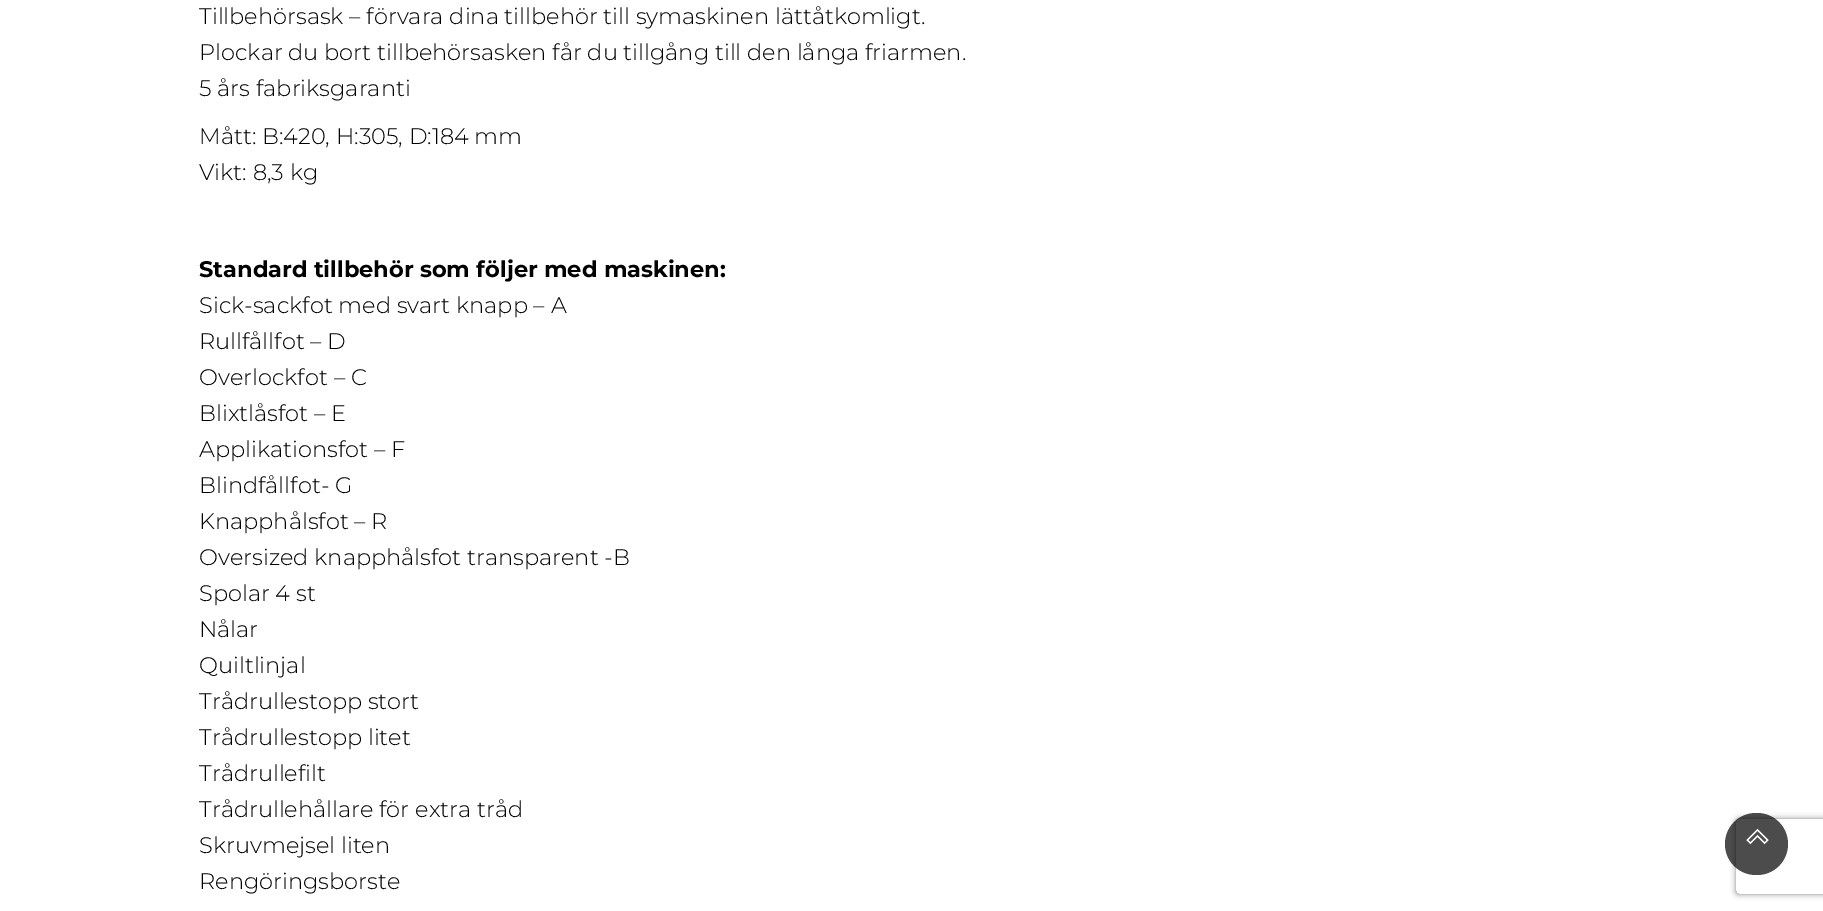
%!PS-Adobe-3.0
%%BoundingBox: 0 0 1823 911
%%LanguageLevel: 3
%%Pages: 1
%%EndComments
%%BeginProlog
/setink { dup -16 bitshift 255 div exch dup -8 bitshift 255 and 255 div exch 255 and 255 div setrgbcolor } def
/usefont { [ exch dup neg 0 0 3 -1 roll 0 0 ] selectfont } def
/setalpha { dup .setfillconstantalpha .setstrokeconstantalpha } def
/rrect { 5 dict begin { /r /h /w /y /x } { exch def } forall
  x r add y moveto x w add y 2 copy h add r arct x w add y h add x 1 index r arct
  x y h add x y r arct x y 2 copy exch w add exch r arct closepath end } def
/softshadow { 12 dict begin { /a /b /q /h /w /y /x } { exch def } forall gsave /was 0 def
  9 -2 -9 { dup b mul 4 div /e exch def 1 sub .425 mul 2.718 exch exp 1 add a .99 .min exch div /now exch def
    1 1 now sub 1 was sub div sub setalpha /was now def
    w h .min e 2 mul add 0 gt { x e sub y e sub w e 2 mul add h e 2 mul add
      q e add b .6 mul add w h .min 2 div e add .min 0 .max rrect fill } if } for grestore end } def
/drawimage { 5 dict begin { /h /w /y /x /name } { exch def } forall
  gsave x y translate w h scale
  w h 8 [w 0 0 h 0 0] name (r) file false 3 colorimage grestore end } def
%%EndProlog
%%BeginSetup
<< /PageSize [1823 911] /PageUsesTransparency true >> setpagedevice
%%EndSetup
%%Page: 1 1
0 .pushpdf14devicefilter
0 911 translate 1 -1 scale
4 setmiterlimit
16#FFFFFF setink
0 0 1823 911 rectfill
/Montserrat-Light 22.5 usefont
16#000000 setink
[
    [(Tillbehörsask – förvara dina tillbehör till symaskinen lättåtkomligt.) 199 24]
    [(Plockar du bort tillbehörsasken får du tillgång till den långa friarmen.) 199 60]
    [(5 års fabriksgaranti) 199 96]
    [(Mått: B:420, H:305, D:184 mm) 199 144]
    [(Vikt: 8,3 kg) 199 180]
] { aload pop moveto show } forall
/Montserrat-Bold 22.5 usefont
199 277 moveto (Standard tillbehör som följer med maskinen:) show
/Montserrat-Light 22.5 usefont
[
    [(Sick-sackfot med svart knapp – A) 199 313]
    [(Rullfållfot – D) 199 349]
    [(Overlockfot – C) 199 385]
    [(Blixtlåsfot – E) 199 421]
    [(Applikationsfot – F) 199 457]
    [(Blindfållfot- G) 199 493]
    [(Knapphålsfot – R) 199 529]
    [(Oversized knapphålsfot transparent -B) 199 565]
    [(Spolar 4 st) 199 601]
    [(Nålar) 199 637]
    [(Quiltlinjal) 199 673]
    [(Trådrullestopp stort) 199 709]
    [(Trådrullestopp litet) 199 745]
    [(Trådrullefilt) 199 781]
    [(Trådrullehållare för extra tråd) 199 817]
    [(Skruvmejsel liten) 199 853]
    [(Rengöringsborste) 199 889]
] { aload pop moveto show } forall
gsave
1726 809 moveto 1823 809 lineto 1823 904 lineto 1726 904 lineto closepath 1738.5 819 moveto 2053.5 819 lineto 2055 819 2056 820 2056 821.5 curveto 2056 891.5 lineto 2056 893 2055 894 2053.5 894 curveto 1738.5 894 lineto 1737 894 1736 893 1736 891.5 curveto 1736 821.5 lineto 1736 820 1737 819 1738.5 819 curveto closepath eoclip newpath
16#808080 setink
1736 819 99 75 2.5 3 1 softshadow
grestore
0.7 setalpha
1725 813 63 62 31 rrect fill
1 setalpha
(img1.raw) 1746 828 23 17 drawimage
.poppdf14devicefilter showpage
%%EOF
